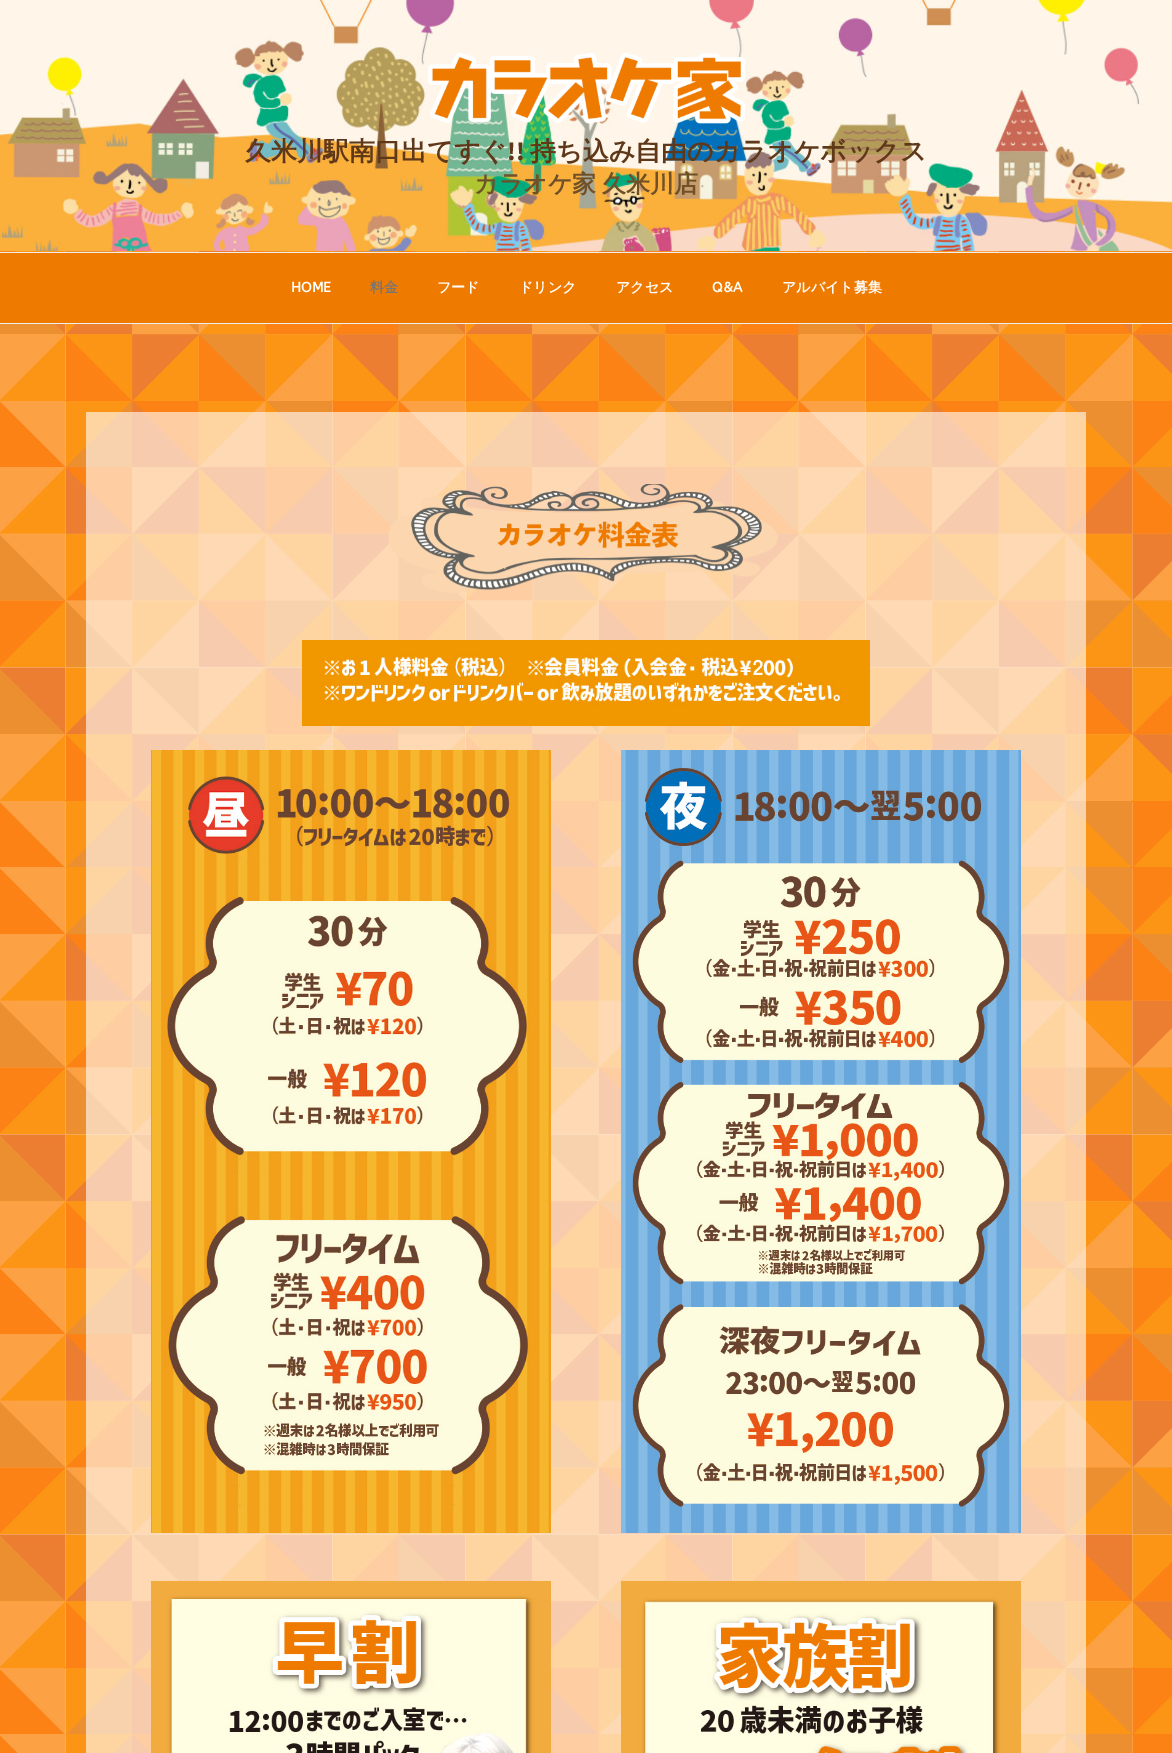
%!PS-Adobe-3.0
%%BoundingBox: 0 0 1172 1753
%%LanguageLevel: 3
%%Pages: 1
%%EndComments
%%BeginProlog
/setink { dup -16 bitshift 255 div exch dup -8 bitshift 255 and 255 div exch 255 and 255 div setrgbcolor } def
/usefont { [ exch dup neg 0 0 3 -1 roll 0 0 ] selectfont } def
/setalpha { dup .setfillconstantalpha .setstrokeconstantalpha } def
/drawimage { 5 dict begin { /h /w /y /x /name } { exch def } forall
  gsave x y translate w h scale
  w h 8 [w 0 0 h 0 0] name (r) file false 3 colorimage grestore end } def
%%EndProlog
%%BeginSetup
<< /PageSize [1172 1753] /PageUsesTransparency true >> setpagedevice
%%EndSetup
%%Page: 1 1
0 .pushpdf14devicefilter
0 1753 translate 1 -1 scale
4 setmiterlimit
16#FFFFFF setink
0 0 1172 1753 rectfill
(img1.raw) 0 251 1172 1502 drawimage
(img2.raw) 0 0 1172 251 drawimage
(img3.raw) 428 52 318 72 drawimage
/WenQuanYiZenHei-Bold 26 usefont
16#5E3819 setink
245 160 moveto (久米川駅南口出てすぐ) show
/SourceSansPro-Bold 26 usefont
507 160 moveto (!!) show
/WenQuanYiZenHei-Bold 26 usefont
530 160 moveto (持ち込み自由のカラオケボックス) show
/WenQuanYiZenHei-Bold 24 usefont
16#6F5028 setink
474 192 moveto -1 0 32 (カラオケ家 久米川店) widthshow
[
    [0 253 1172 70 16#EF7A00]
    [0 252 1172 1 16#EEEEEE]
    [0 323 1172 1 16#EEEEEE]
] { aload pop setink rectfill } forall
/ABeeZee-Bold 14 usefont
16#FFFFFF setink
291 292 moveto (HOME) show
/WenQuanYiZenHei-Bold 14 usefont
16#767676 setink
370 292 moveto (料金) show
16#FFFFFF setink
[
    [(フード) 437 292]
    [(ドリンク) 519 292]
    [(アクセス) 616 292]
] { aload pop moveto show } forall
/ABeeZee-Bold 14 usefont
712 292 moveto (Q&A) show
/WenQuanYiZenHei-Bold 14 usefont
782 292 moveto (アルバイト募集) show
0.6 setalpha
86 412 1000 1341 rectfill
1 setalpha
(img4.raw) 388 484 390 109 drawimage
(img5.raw) 302 640 568 86 drawimage
(img6.raw) 151 750 400 783 drawimage
(img7.raw) 621 750 400 783 drawimage
(img8.raw) 151 1581 400 172 drawimage
(img9.raw) 621 1581 400 172 drawimage
.poppdf14devicefilter showpage
%%EOF
